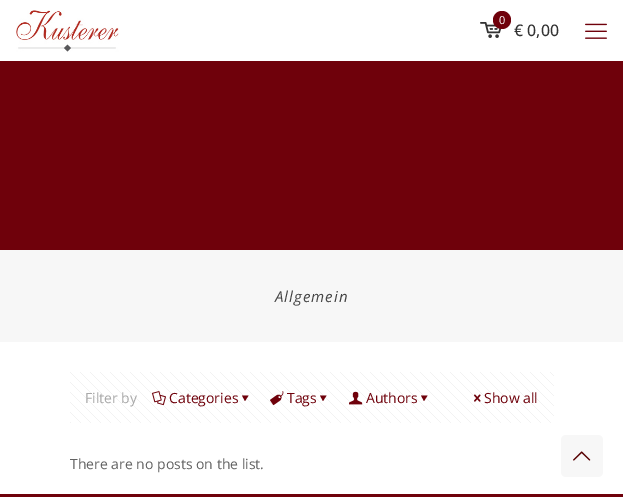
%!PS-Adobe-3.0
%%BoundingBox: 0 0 623 497
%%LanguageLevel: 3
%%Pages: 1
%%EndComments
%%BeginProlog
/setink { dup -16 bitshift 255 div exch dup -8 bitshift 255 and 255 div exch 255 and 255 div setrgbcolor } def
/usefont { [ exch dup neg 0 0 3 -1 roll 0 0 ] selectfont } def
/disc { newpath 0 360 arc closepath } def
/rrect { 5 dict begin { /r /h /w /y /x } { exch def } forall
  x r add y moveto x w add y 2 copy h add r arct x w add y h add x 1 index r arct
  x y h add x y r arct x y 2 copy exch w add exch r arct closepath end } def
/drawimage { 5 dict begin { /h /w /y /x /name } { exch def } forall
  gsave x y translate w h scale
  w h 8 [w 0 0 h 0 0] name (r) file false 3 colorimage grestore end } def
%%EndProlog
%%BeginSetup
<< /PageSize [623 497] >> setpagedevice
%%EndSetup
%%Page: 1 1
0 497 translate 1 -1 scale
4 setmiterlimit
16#FFFFFF setink
0 0 623 497 rectfill
16#6F010B setink
0 61 623 189 rectfill
(img1.raw) 16 10 103 42 drawimage
(img2.raw) 585 23 22 16 drawimage
(img3.raw) 480 22 22 16 drawimage
502 20 9 disc fill
/OpenSans-Regular 11 usefont
16#FFFFFF setink
499 24 moveto (0) show
/OpenSans-Medium 16 usefont
16#333333 setink
514 36 moveto (€ 0,00) show
16#F7F7F7 setink
0 250 623 92 rectfill
/OpenSans-Italic 15 usefont
16#444444 setink
275 302 moveto 1 0 (Allgemein) ashow
(img4.raw) 70 372 484 51 drawimage
/OpenSans-Regular 14 usefont
16#A8A8A8 setink
85 403 moveto (Filter by) show
(img5.raw) 152 391 14 15 drawimage
16#6F010B setink
169 403 moveto (Categories) show
248.5 395.5 moveto 245 401 lineto 242 395.5 lineto closepath fill
(img6.raw) 270 391 14 14 drawimage
287 403 moveto (Tags) show
326.5 395.5 moveto 323 401 lineto 320 395.5 lineto closepath fill
(img7.raw) 349 391 14 14 drawimage
366 403 moveto (Authors) show
427.5 395.5 moveto 424 401 lineto 421 395.5 lineto closepath fill
(img8.raw) 474 394 7 8 drawimage
484 403 moveto (Show all) show
16#626262 setink
70 469 moveto (There are no posts on the list.) show
16#6F010B setink
0 494 623 3 rectfill
16#F7F7F7 setink
561 435 42 42 5 rrect fill
(img9.raw) 573 451 18 10 drawimage
showpage
%%EOF
